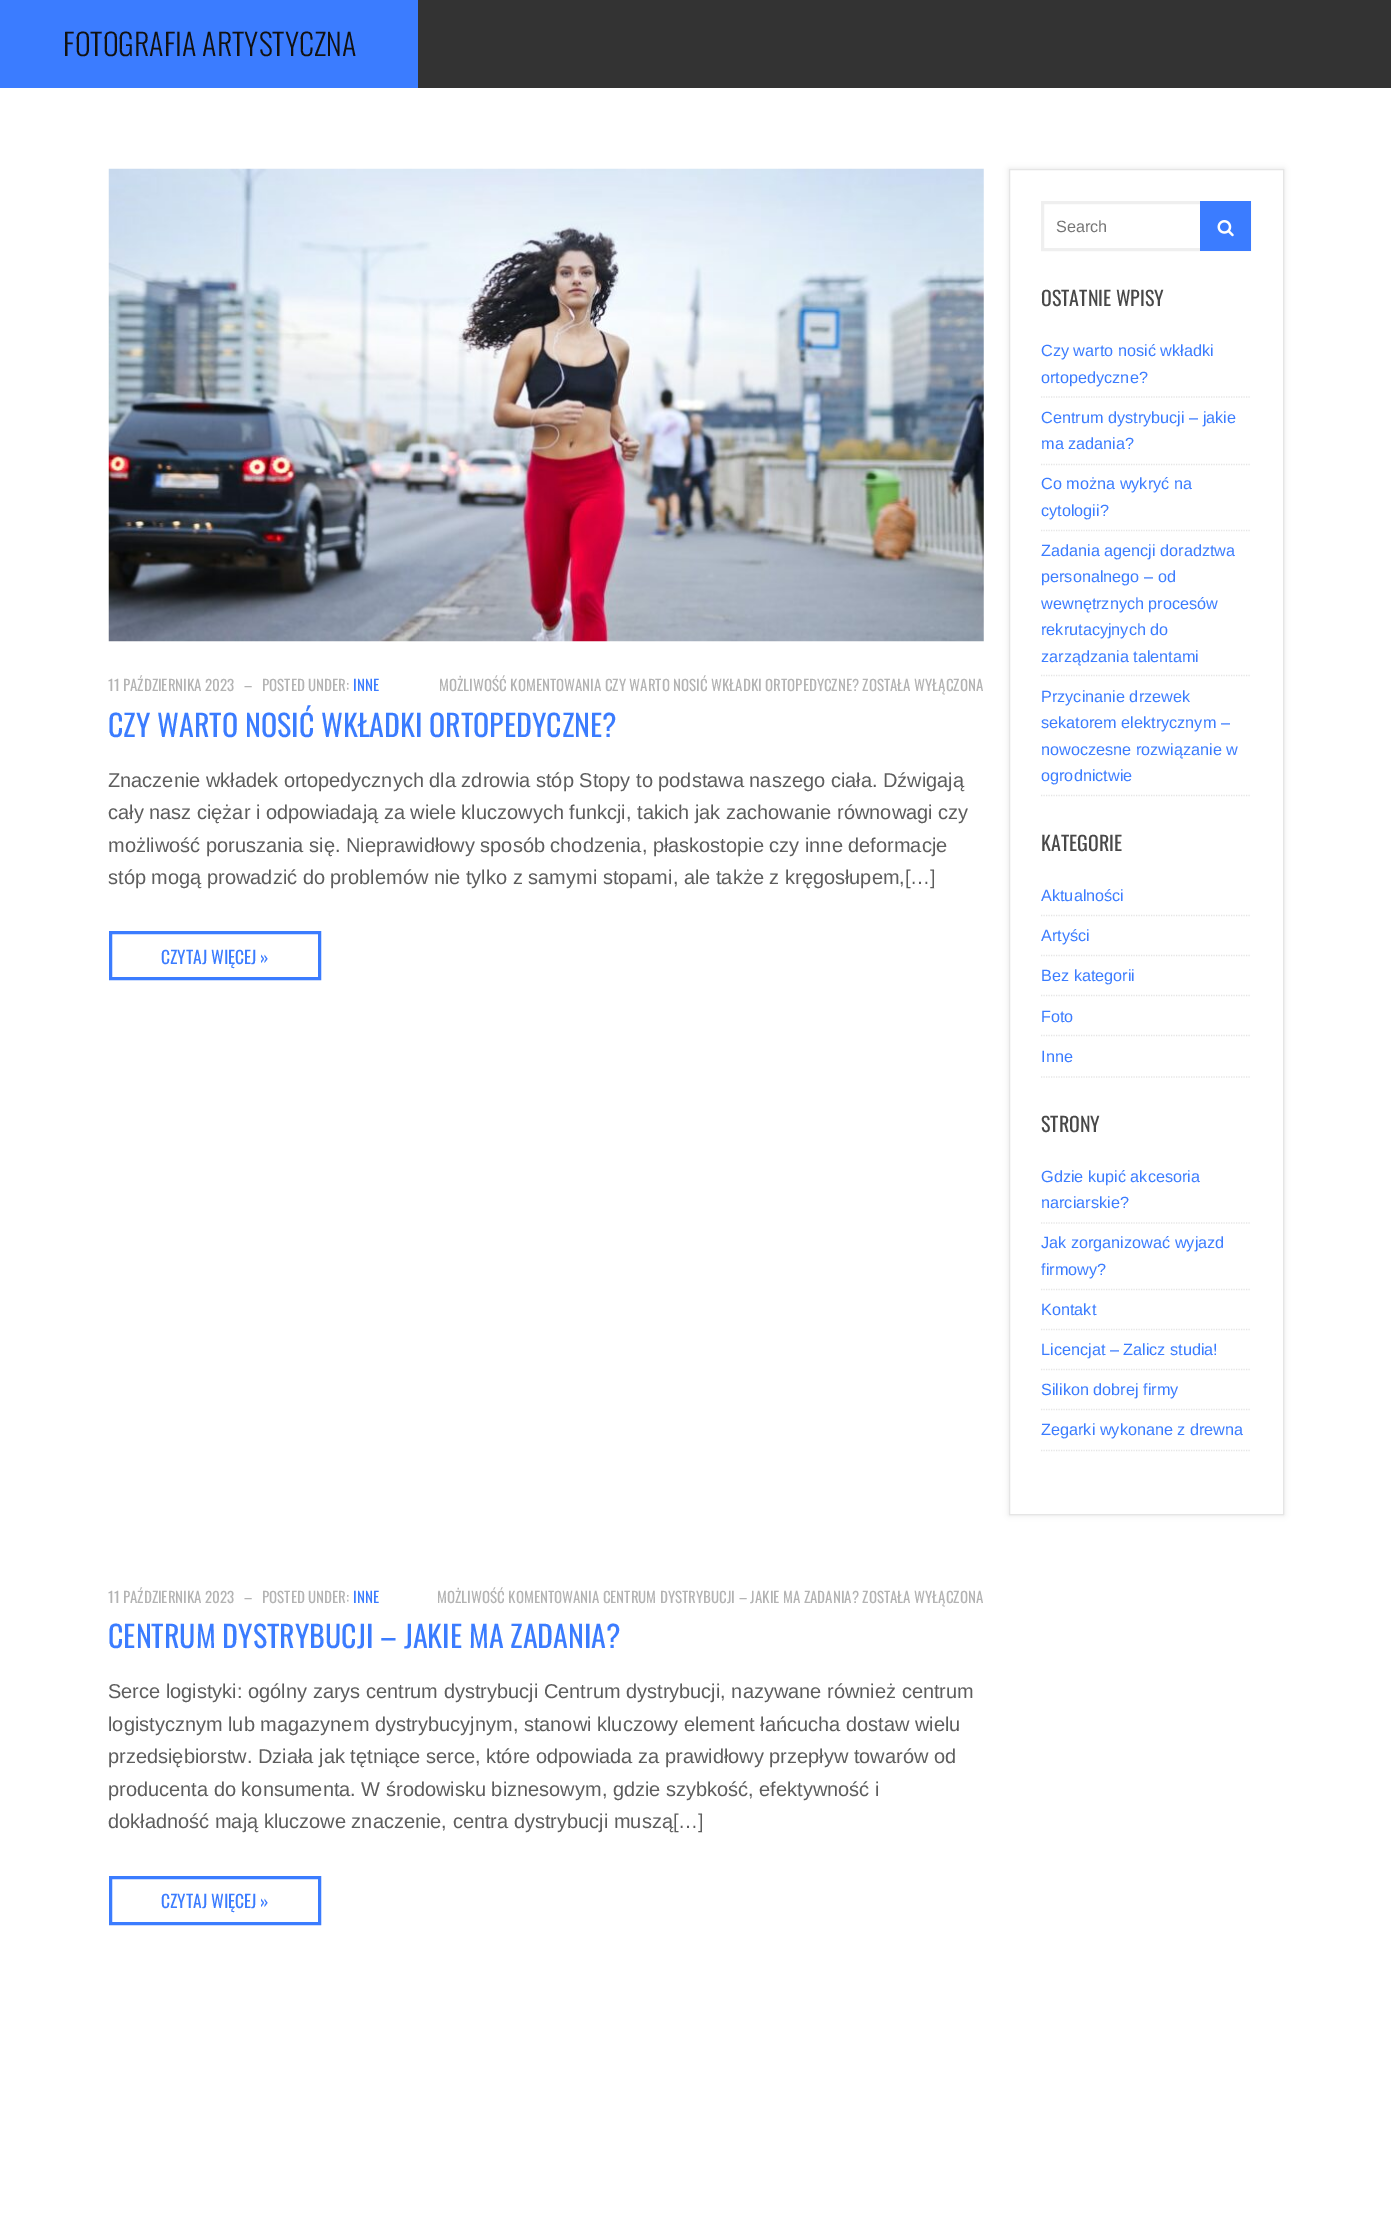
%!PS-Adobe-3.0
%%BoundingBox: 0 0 1391 2226
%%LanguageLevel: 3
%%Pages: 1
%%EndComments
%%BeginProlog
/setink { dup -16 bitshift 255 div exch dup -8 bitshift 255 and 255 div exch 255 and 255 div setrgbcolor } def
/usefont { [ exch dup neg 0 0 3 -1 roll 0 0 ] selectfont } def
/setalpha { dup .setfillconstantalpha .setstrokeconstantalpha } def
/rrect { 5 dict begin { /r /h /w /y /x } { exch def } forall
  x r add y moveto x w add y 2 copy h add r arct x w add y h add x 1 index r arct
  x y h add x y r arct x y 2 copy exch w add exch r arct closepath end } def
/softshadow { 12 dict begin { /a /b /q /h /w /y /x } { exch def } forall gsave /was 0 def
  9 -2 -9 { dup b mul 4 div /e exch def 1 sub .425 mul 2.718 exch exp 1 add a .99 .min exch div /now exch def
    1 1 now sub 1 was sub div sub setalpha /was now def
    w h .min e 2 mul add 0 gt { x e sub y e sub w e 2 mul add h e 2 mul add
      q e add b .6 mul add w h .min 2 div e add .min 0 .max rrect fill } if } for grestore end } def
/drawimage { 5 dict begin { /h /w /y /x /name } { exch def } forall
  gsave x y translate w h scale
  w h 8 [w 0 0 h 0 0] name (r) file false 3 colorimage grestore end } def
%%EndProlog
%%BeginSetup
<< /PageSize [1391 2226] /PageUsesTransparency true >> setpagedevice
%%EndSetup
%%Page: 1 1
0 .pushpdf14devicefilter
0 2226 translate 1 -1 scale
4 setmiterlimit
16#FFFFFF setink
0 0 1391 2226 rectfill
16#333333 setink
418 0 973 88 rectfill
16#3B7CFF setink
0 0 418 88 rectfill
/Oswald-Light 30 usefont
16#111111 setink
63 56 moveto (FOTOGRAFIA ARTYSTYCZNA) show
(img1.raw) 108 168 876 474 drawimage
/Oswald-Regular 15 usefont
16#B3B3B3 setink
[
    [(11 PAŹDZIERNIKA 2023) 108 691]
    [(–) 244 691]
    [(POSTED UNDER:) 262 691]
] { aload pop moveto show } forall
16#3B7CFF setink
353 691 moveto (INNE) show
16#B3B3B3 setink
439 691 moveto (MOŻLIWOŚĆ KOMENTOWANIA CZY WARTO NOSIĆ WKŁADKI ORTOPEDYCZNE? ZOSTAŁA WYŁĄCZONA) show
/Oswald-Regular 30 usefont
16#3B7CFF setink
108 737 moveto (CZY WARTO NOSIĆ WKŁADKI ORTOPEDYCZNE?) show
/LiberationSans-Regular 20 usefont
16#5D5D5D setink
[
    [(Znaczenie wkładek ortopedycznych dla zdrowia stóp Stopy to podstawa naszego ciała. Dźwigają) 108 787]
    [(cały nasz ciężar i odpowiadają za wiele kluczowych funkcji, takich jak zachowanie równowagi czy) 108 819]
    [(możliwość poruszania się. Nieprawidłowy sposób chodzenia, płaskostopie czy inne deformacje) 108 852]
    [(stóp mogą prowadzić do problemów nie tylko z samymi stopami, ale także z kręgosłupem,[…]) 108 884]
] { aload pop moveto show } forall
16#3B7CFF setink
3 setlinewidth
110.5 932.5 209 46 rectstroke
/Oswald-Regular 17.5 usefont
161 964 moveto (CZYTAJ WIĘCEJ ») show
/Oswald-Regular 15 usefont
16#B3B3B3 setink
[
    [(11 PAŹDZIERNIKA 2023) 108 1603]
    [(–) 244 1603]
    [(POSTED UNDER:) 262 1603]
] { aload pop moveto show } forall
16#3B7CFF setink
353 1603 moveto (INNE) show
16#B3B3B3 setink
437 1603 moveto (MOŻLIWOŚĆ KOMENTOWANIA CENTRUM DYSTRYBUCJI – JAKIE MA ZADANIA? ZOSTAŁA WYŁĄCZONA) show
/Oswald-Regular 30 usefont
16#3B7CFF setink
108 1648 moveto (CENTRUM DYSTRYBUCJI – JAKIE MA ZADANIA?) show
/LiberationSans-Regular 20 usefont
16#5D5D5D setink
[
    [(Serce logistyki: ogólny zarys centrum dystrybucji Centrum dystrybucji, nazywane również centrum) 108 1698]
    [(logistycznym lub magazynem dystrybucyjnym, stanowi kluczowy element łańcucha dostaw wielu) 108 1731]
    [(przedsiębiorstw. Działa jak tętniące serce, które odpowiada za prawidłowy przepływ towarów od) 108 1763]
    [(producenta do konsumenta. W środowisku biznesowym, gdzie szybkość, efektywność i) 108 1796]
    [(dokładność mają kluczowe znaczenie, centra dystrybucji muszą[…]) 108 1828]
] { aload pop moveto show } forall
16#3B7CFF setink
110.5 1877.5 209 46 rectstroke
/Oswald-Regular 17.5 usefont
161 1908 moveto (CZYTAJ WIĘCEJ ») show
gsave
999 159 moveto 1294 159 lineto 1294 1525 lineto 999 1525 lineto closepath 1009 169 moveto 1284 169 lineto 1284 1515 lineto 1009 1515 lineto closepath eoclip newpath
16#000000 setink
1009 169 275 1346 0 3 0.1 softshadow
grestore
16#E5E5E5 setink
1 setlinewidth
1009.5 169.5 274 1345 rectstroke
16#EFEFEF setink
3 setlinewidth
1042.5 202.5 207 47 rectstroke
/LiberationSans-Regular 16.25 usefont
16#757575 setink
1056 232 moveto (Search) show
16#3B7CFF setink
1200 201 51 50 rectfill
(img2.raw) 1217 220 17 17 drawimage
/Oswald-Regular 20 usefont
16#484848 setink
1041 306 moveto (OSTATNIE WPISY) show
16#E5E5E5 setink
1.2 setlinewidth
[1.25 1.25] 0 setdash
1041 397 moveto 1251 397 lineto stroke
/LiberationSans-Regular 16.25 usefont
16#3B7CFF setink
1041 356 moveto (Czy warto nosić wkładki) show
1041 383 moveto (ortopedyczne?) show
16#E5E5E5 setink
1041 464.5 moveto 1251 464.5 lineto stroke
16#3B7CFF setink
1041 423 moveto (Centrum dystrybucji – jakie) show
1041 449 moveto (ma zadania?) show
16#E5E5E5 setink
1041 530.5 moveto 1251 530.5 lineto stroke
16#3B7CFF setink
1041 489 moveto (Co można wykryć na) show
1041 516 moveto (cytologii?) show
16#E5E5E5 setink
1041 675.5 moveto 1251 675.5 lineto stroke
16#3B7CFF setink
[
    [(Zadania agencji doradztwa) 1041 556]
    [(personalnego – od) 1041 582]
    [(wewnętrznych procesów) 1041 609]
    [(rekrutacyjnych do) 1041 635]
    [(zarządzania talentami) 1041 662]
] { aload pop moveto show } forall
16#E5E5E5 setink
1041 795.5 moveto 1251 795.5 lineto stroke
16#3B7CFF setink
[
    [(Przycinanie drzewek) 1041 702]
    [(sekatorem elektrycznym –) 1041 728]
    [(nowoczesne rozwiązanie w) 1041 755]
    [(ogrodnictwie) 1041 781]
] { aload pop moveto show } forall
/Oswald-Regular 20 usefont
16#484848 setink
1041 851 moveto (KATEGORIE) show
16#E5E5E5 setink
1041 915.5 moveto 1251 915.5 lineto stroke
/LiberationSans-Regular 16.25 usefont
16#3B7CFF setink
1041 901 moveto (Aktualności) show
16#E5E5E5 setink
1041 955.5 moveto 1251 955.5 lineto stroke
16#3B7CFF setink
1041 941 moveto (Artyści) show
16#E5E5E5 setink
1041 995.5 moveto 1251 995.5 lineto stroke
16#3B7CFF setink
1041 981 moveto (Bez kategorii) show
16#E5E5E5 setink
1041 1035.5 moveto 1251 1035.5 lineto stroke
16#3B7CFF setink
1041 1022 moveto (Foto) show
16#E5E5E5 setink
1041 1077 moveto 1251 1077 lineto stroke
16#3B7CFF setink
1041 1062 moveto (Inne) show
/Oswald-Regular 20 usefont
16#484848 setink
1041 1132 moveto (STRONY) show
16#E5E5E5 setink
1041 1223 moveto 1251 1223 lineto stroke
/LiberationSans-Regular 16.25 usefont
16#3B7CFF setink
1041 1182 moveto (Gdzie kupić akcesoria) show
1041 1208 moveto (narciarskie?) show
16#E5E5E5 setink
1041 1289.5 moveto 1251 1289.5 lineto stroke
16#3B7CFF setink
1041 1248 moveto (Jak zorganizować wyjazd) show
1041 1275 moveto (firmowy?) show
16#E5E5E5 setink
1041 1329.5 moveto 1251 1329.5 lineto stroke
16#3B7CFF setink
1041 1315 moveto (Kontakt) show
16#E5E5E5 setink
1041 1369.5 moveto 1251 1369.5 lineto stroke
16#3B7CFF setink
1041 1355 moveto (Licencjat – Zalicz studia!) show
16#E5E5E5 setink
1041 1409.5 moveto 1251 1409.5 lineto stroke
16#3B7CFF setink
1041 1395 moveto (Silikon dobrej firmy) show
16#E5E5E5 setink
1041 1450.5 moveto 1251 1450.5 lineto stroke
16#3B7CFF setink
1041 1435 moveto (Zegarki wykonane z drewna) show
.poppdf14devicefilter showpage
%%EOF
